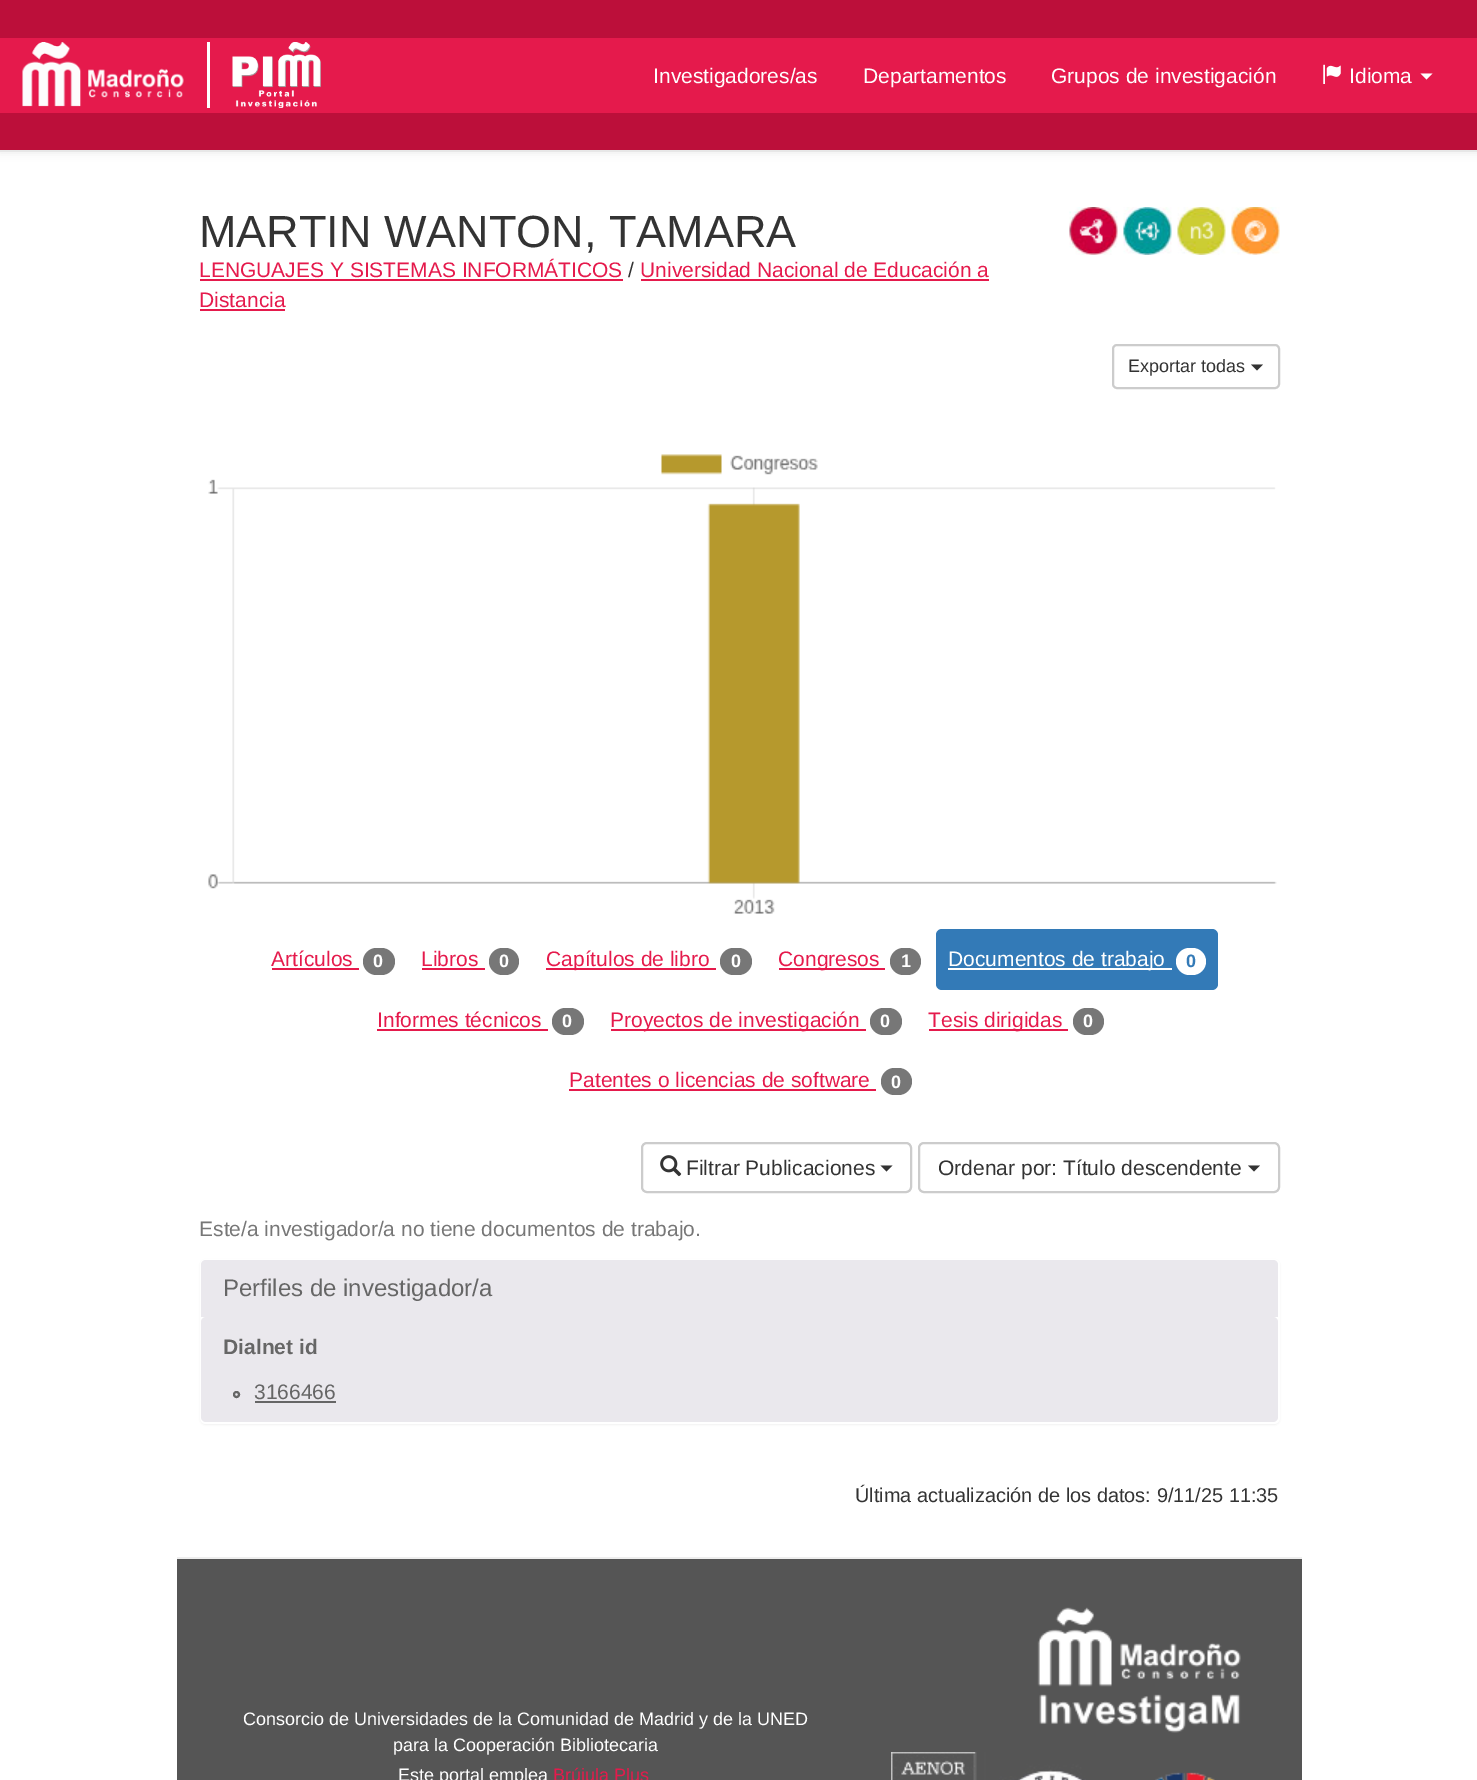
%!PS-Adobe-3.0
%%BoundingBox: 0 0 1477 1780
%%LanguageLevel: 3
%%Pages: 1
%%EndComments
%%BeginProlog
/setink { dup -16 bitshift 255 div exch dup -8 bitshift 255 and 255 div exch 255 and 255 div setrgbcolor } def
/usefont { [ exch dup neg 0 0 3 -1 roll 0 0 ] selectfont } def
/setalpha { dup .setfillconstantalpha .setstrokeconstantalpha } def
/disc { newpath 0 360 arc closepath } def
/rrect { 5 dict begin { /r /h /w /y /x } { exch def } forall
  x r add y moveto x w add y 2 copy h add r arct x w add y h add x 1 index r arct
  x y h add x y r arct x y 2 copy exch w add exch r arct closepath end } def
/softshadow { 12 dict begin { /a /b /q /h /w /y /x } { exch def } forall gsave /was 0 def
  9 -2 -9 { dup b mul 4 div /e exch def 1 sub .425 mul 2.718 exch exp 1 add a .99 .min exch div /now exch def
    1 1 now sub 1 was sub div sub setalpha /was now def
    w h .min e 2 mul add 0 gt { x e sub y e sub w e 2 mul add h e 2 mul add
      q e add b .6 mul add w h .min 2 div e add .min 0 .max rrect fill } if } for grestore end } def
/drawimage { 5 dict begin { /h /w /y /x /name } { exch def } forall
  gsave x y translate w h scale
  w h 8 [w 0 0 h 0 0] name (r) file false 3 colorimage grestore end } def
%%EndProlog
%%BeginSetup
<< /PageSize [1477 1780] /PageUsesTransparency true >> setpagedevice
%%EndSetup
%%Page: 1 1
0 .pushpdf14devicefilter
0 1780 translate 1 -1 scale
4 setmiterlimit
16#FFFFFF setink
0 0 1477 1780 rectfill
16#000000 setink
0 2 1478 151 0 4 0.07 softshadow
[
    [0 150 1477 2 16#E7E7E7]
    [0 38 1477 75 16#E51A4C]
    [0 0 1477 38 16#BC0F3A]
    [0 113 1477 37 16#BC0F3A]
    [207 42 3 66 16#FFFFFF]
] { aload pop setink rectfill } forall
(img1.raw) 22 42 162 65 drawimage
(img2.raw) 232 42 89 66 drawimage
/LiberationSans-Regular 21 usefont
[
    [(Investigadores/as) 653 83]
    [(Departamentos) 863 83]
    [(Grupos de investigación) 1051 83]
] { aload pop moveto show } forall
(img3.raw) 1323 64 18 20 drawimage
1349 83 moveto (Idioma) show
1420.5 73.5 moveto 1432.5 73.5 lineto 1426.5 79.5 lineto closepath fill
/LiberationSans-Regular 45 usefont
16#333333 setink
199 247 moveto (MARTIN WANTON, TAMARA) show
(img4.raw) 1069 207 49 48 drawimage
(img5.raw) 1123 207 49 48 drawimage
(img6.raw) 1177 207 49 48 drawimage
(img7.raw) 1231 207 49 48 drawimage
/LiberationSans-Regular 21 usefont
16#E51A4C setink
199 277 moveto (LENGUAJES Y SISTEMAS INFORMÁTICOS) show
200 279 423 2 rectfill
16#333333 setink
628 277 moveto (/) show
16#E51A4C setink
640 277 moveto (Universidad Nacional de Educación a) show
641 279 348 2 rectfill
199 307 moveto (Distancia) show
200 309 85 2 rectfill
16#CCCCCC setink
2 setlinewidth
1113 345 166 43 4 rrect stroke
/LiberationSans-Regular 18 usefont
16#333333 setink
1128 372 moveto (Exportar todas) show
1251 364.5 moveto 1263 364.5 lineto 1257 370.5 lineto closepath fill
(img8.raw) 208 454 1069 460 drawimage
/LiberationSans-Regular 21 usefont
16#E51A4C setink
271 966 moveto (Artículos) show
272 968 87 2 rectfill
16#777777 setink
363 948 32 27 13.5 rrect fill
/LiberationSans-Bold 18 usefont
16#FFFFFF setink
373 967 moveto (0) show
/LiberationSans-Regular 21 usefont
16#E51A4C setink
421 966 moveto (Libros) show
422 968 63 2 rectfill
16#777777 setink
489 948 30 27 13.5 rrect fill
/LiberationSans-Bold 18 usefont
16#FFFFFF setink
499 967 moveto (0) show
16#E51A4C setink
546 968 170 2 rectfill
/LiberationSans-Regular 21 usefont
546 966 moveto (Capítulos de libro) show
16#777777 setink
720 948 32 27 13.5 rrect fill
/LiberationSans-Bold 18 usefont
16#FFFFFF setink
731 967 moveto (0) show
16#E51A4C setink
779 968 106 2 rectfill
/LiberationSans-Regular 21 usefont
778 966 moveto (Congresos) show
16#777777 setink
890 948 31 27 13.5 rrect fill
/LiberationSans-Bold 18 usefont
16#FFFFFF setink
901 967 moveto (1) show
16#337AB7 setink
936 929 282 61 6 rrect fill
16#FFFFFF setink
948 968 224 2 rectfill
/LiberationSans-Regular 21 usefont
948 966 moveto (Documentos de trabajo) show
1176 948 30 27 13.5 rrect fill
/LiberationSans-Bold 18 usefont
16#337AB7 setink
1186 967 moveto (0) show
/LiberationSans-Regular 21 usefont
16#E51A4C setink
377 1027 moveto (Informes técnicos) show
377 1029 171 2 rectfill
16#777777 setink
552 1008 32 27 13.5 rrect fill
/LiberationSans-Bold 18 usefont
16#FFFFFF setink
562 1027 moveto (0) show
16#E51A4C setink
611 1029 255 2 rectfill
/LiberationSans-Regular 21 usefont
610 1027 moveto (Proyectos de investigación) show
16#777777 setink
870 1008 32 27 13.5 rrect fill
/LiberationSans-Bold 18 usefont
16#FFFFFF setink
880 1027 moveto (0) show
16#E51A4C setink
929 1029 139 2 rectfill
/LiberationSans-Regular 21 usefont
928 1027 moveto (Tesis dirigidas) show
16#777777 setink
1073 1008 31 27 13.5 rrect fill
/LiberationSans-Bold 18 usefont
16#FFFFFF setink
1083 1027 moveto (0) show
/LiberationSans-Regular 21 usefont
16#E51A4C setink
569 1087 moveto (Patentes o licencias de software) show
569 1089 307 2 rectfill
16#777777 setink
881 1068 31 27 13.5 rrect fill
/LiberationSans-Bold 18 usefont
16#FFFFFF setink
891 1088 moveto (0) show
16#CCCCCC setink
642 1143 269 49 5 rrect stroke
(img9.raw) 660 1155 22 22 drawimage
/LiberationSans-Regular 21 usefont
16#333333 setink
686 1175 moveto (Filtrar Publicaciones) show
880.5 1165.5 moveto 892.5 1165.5 lineto 886.5 1171.5 lineto closepath fill
16#CCCCCC setink
919 1143 360 49 5 rrect stroke
16#333333 setink
938 1175 moveto (Ordenar por: Título descendente) show
1248 1165.5 moveto 1260 1165.5 lineto 1254 1171.5 lineto closepath fill
16#777777 setink
199 1236 moveto (Este/a investigador/a no tiene documentos de trabajo.) show
16#000000 setink
200 1260 1080 165 6 1 0.05 softshadow
16#FFFFFF setink
200 1259 1080 165 6 rrect fill
16#EAE8ED setink
206 1260 moveto 1273 1260 lineto 1276 1260 1278 1262 1278 1265 curveto 1278 1317 lineto 201 1317 lineto 201 1265 lineto 201 1262 203 1260 206 1260 curveto closepath fill
/LiberationSans-Regular 24 usefont
16#666666 setink
223 1296 moveto (Perfiles de investigador/a) show
16#EAE8ED setink
201 1317 1077 105 5 rrect fill
/LiberationSans-Bold 21 usefont
16#666666 setink
223 1354 moveto (Dialnet id) show
236.5 1394.5 2.5 disc stroke
/LiberationSans-Regular 21 usefont
254 1399 moveto (3166466) show
255 1401 81 2 rectfill
/LiberationSans-Regular 19.95 usefont
16#333333 setink
855 1502 moveto (Última actualización de los datos: 9/11/25 11:35) show
16#555555 setink
177 1559 1125 221 rectfill
16#EEEEEE setink
177 1557 1125 2 rectfill
/LiberationSans-Regular 18 usefont
16#FFFFFF setink
[
    [(Consorcio de Universidades de la Comunidad de Madrid y de la UNED) 243 1725]
    [(para la Cooperación Bibliotecaria) 393 1751]
    [(Este portal emplea) 398 1781]
] { aload pop moveto show } forall
16#E51A4C setink
553 1781 moveto (Brújula Plus) show
(img10.raw) 1037 1607 204 126 drawimage
(img11.raw) 891 1752 195 28 drawimage
(img12.raw) 1155 1772 60 8 drawimage
.poppdf14devicefilter showpage
%%EOF
